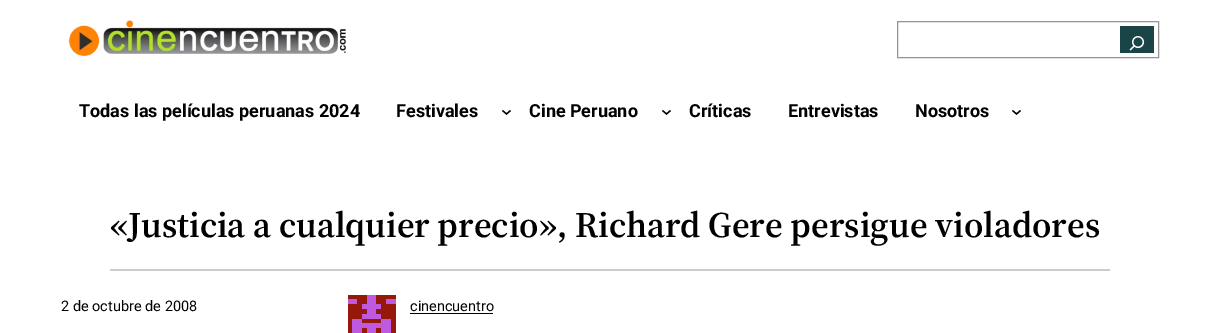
%!PS-Adobe-3.0
%%BoundingBox: 0 0 1220 333
%%LanguageLevel: 3
%%Pages: 1
%%EndComments
%%BeginProlog
/setink { dup -16 bitshift 255 div exch dup -8 bitshift 255 and 255 div exch 255 and 255 div setrgbcolor } def
/usefont { [ exch dup neg 0 0 3 -1 roll 0 0 ] selectfont } def
/drawimage { 5 dict begin { /h /w /y /x /name } { exch def } forall
  gsave x y translate w h scale
  w h 8 [w 0 0 h 0 0] name (r) file false 3 colorimage grestore end } def
%%EndProlog
%%BeginSetup
<< /PageSize [1220 333] >> setpagedevice
%%EndSetup
%%Page: 1 1
0 333 translate 1 -1 scale
4 setmiterlimit
16#FFFFFF setink
0 0 1220 333 rectfill
(img1.raw) 68 20 278 37 drawimage
16#949494 setink
897.5 21.5 261 36 rectstroke
16#1A4548 setink
1120 26 34 27 rectfill
(img2.raw) 1129 36 16 15 drawimage
/Roboto-Bold 18 usefont
16#000000 setink
79 117 moveto (Todas las películas peruanas 2024) show
396 117 moveto (Festivales) show
1.3 setlinewidth
502.5 110.5 moveto 506.5 114 lineto 510.5 110.5 lineto stroke
529 117 moveto (Cine Peruano) show
662.5 110.5 moveto 666.5 114 lineto 670.5 110.5 lineto stroke
[
    [(Críticas) 689 117]
    [(Entrevistas) 788 117]
    [(Nosotros) 915 117]
] { aload pop moveto show } forall
1012.5 110.5 moveto 1016.5 114 lineto 1020.5 110.5 lineto stroke
/SourceSerif4-SemiBold 36 usefont
110 237 moveto («Justicia a cualquier precio», Richard Gere persigue violadores) show
16#CCCCCC setink
110 269 1000 2 rectfill
/Roboto-Regular 14.5 usefont
16#000000 setink
61 311 moveto (2 de octubre de 2008) show
(img3.raw) 348 295 48 38 drawimage
410 311 moveto (cinencuentro) show
410 313 83 1 rectfill
showpage
%%EOF
